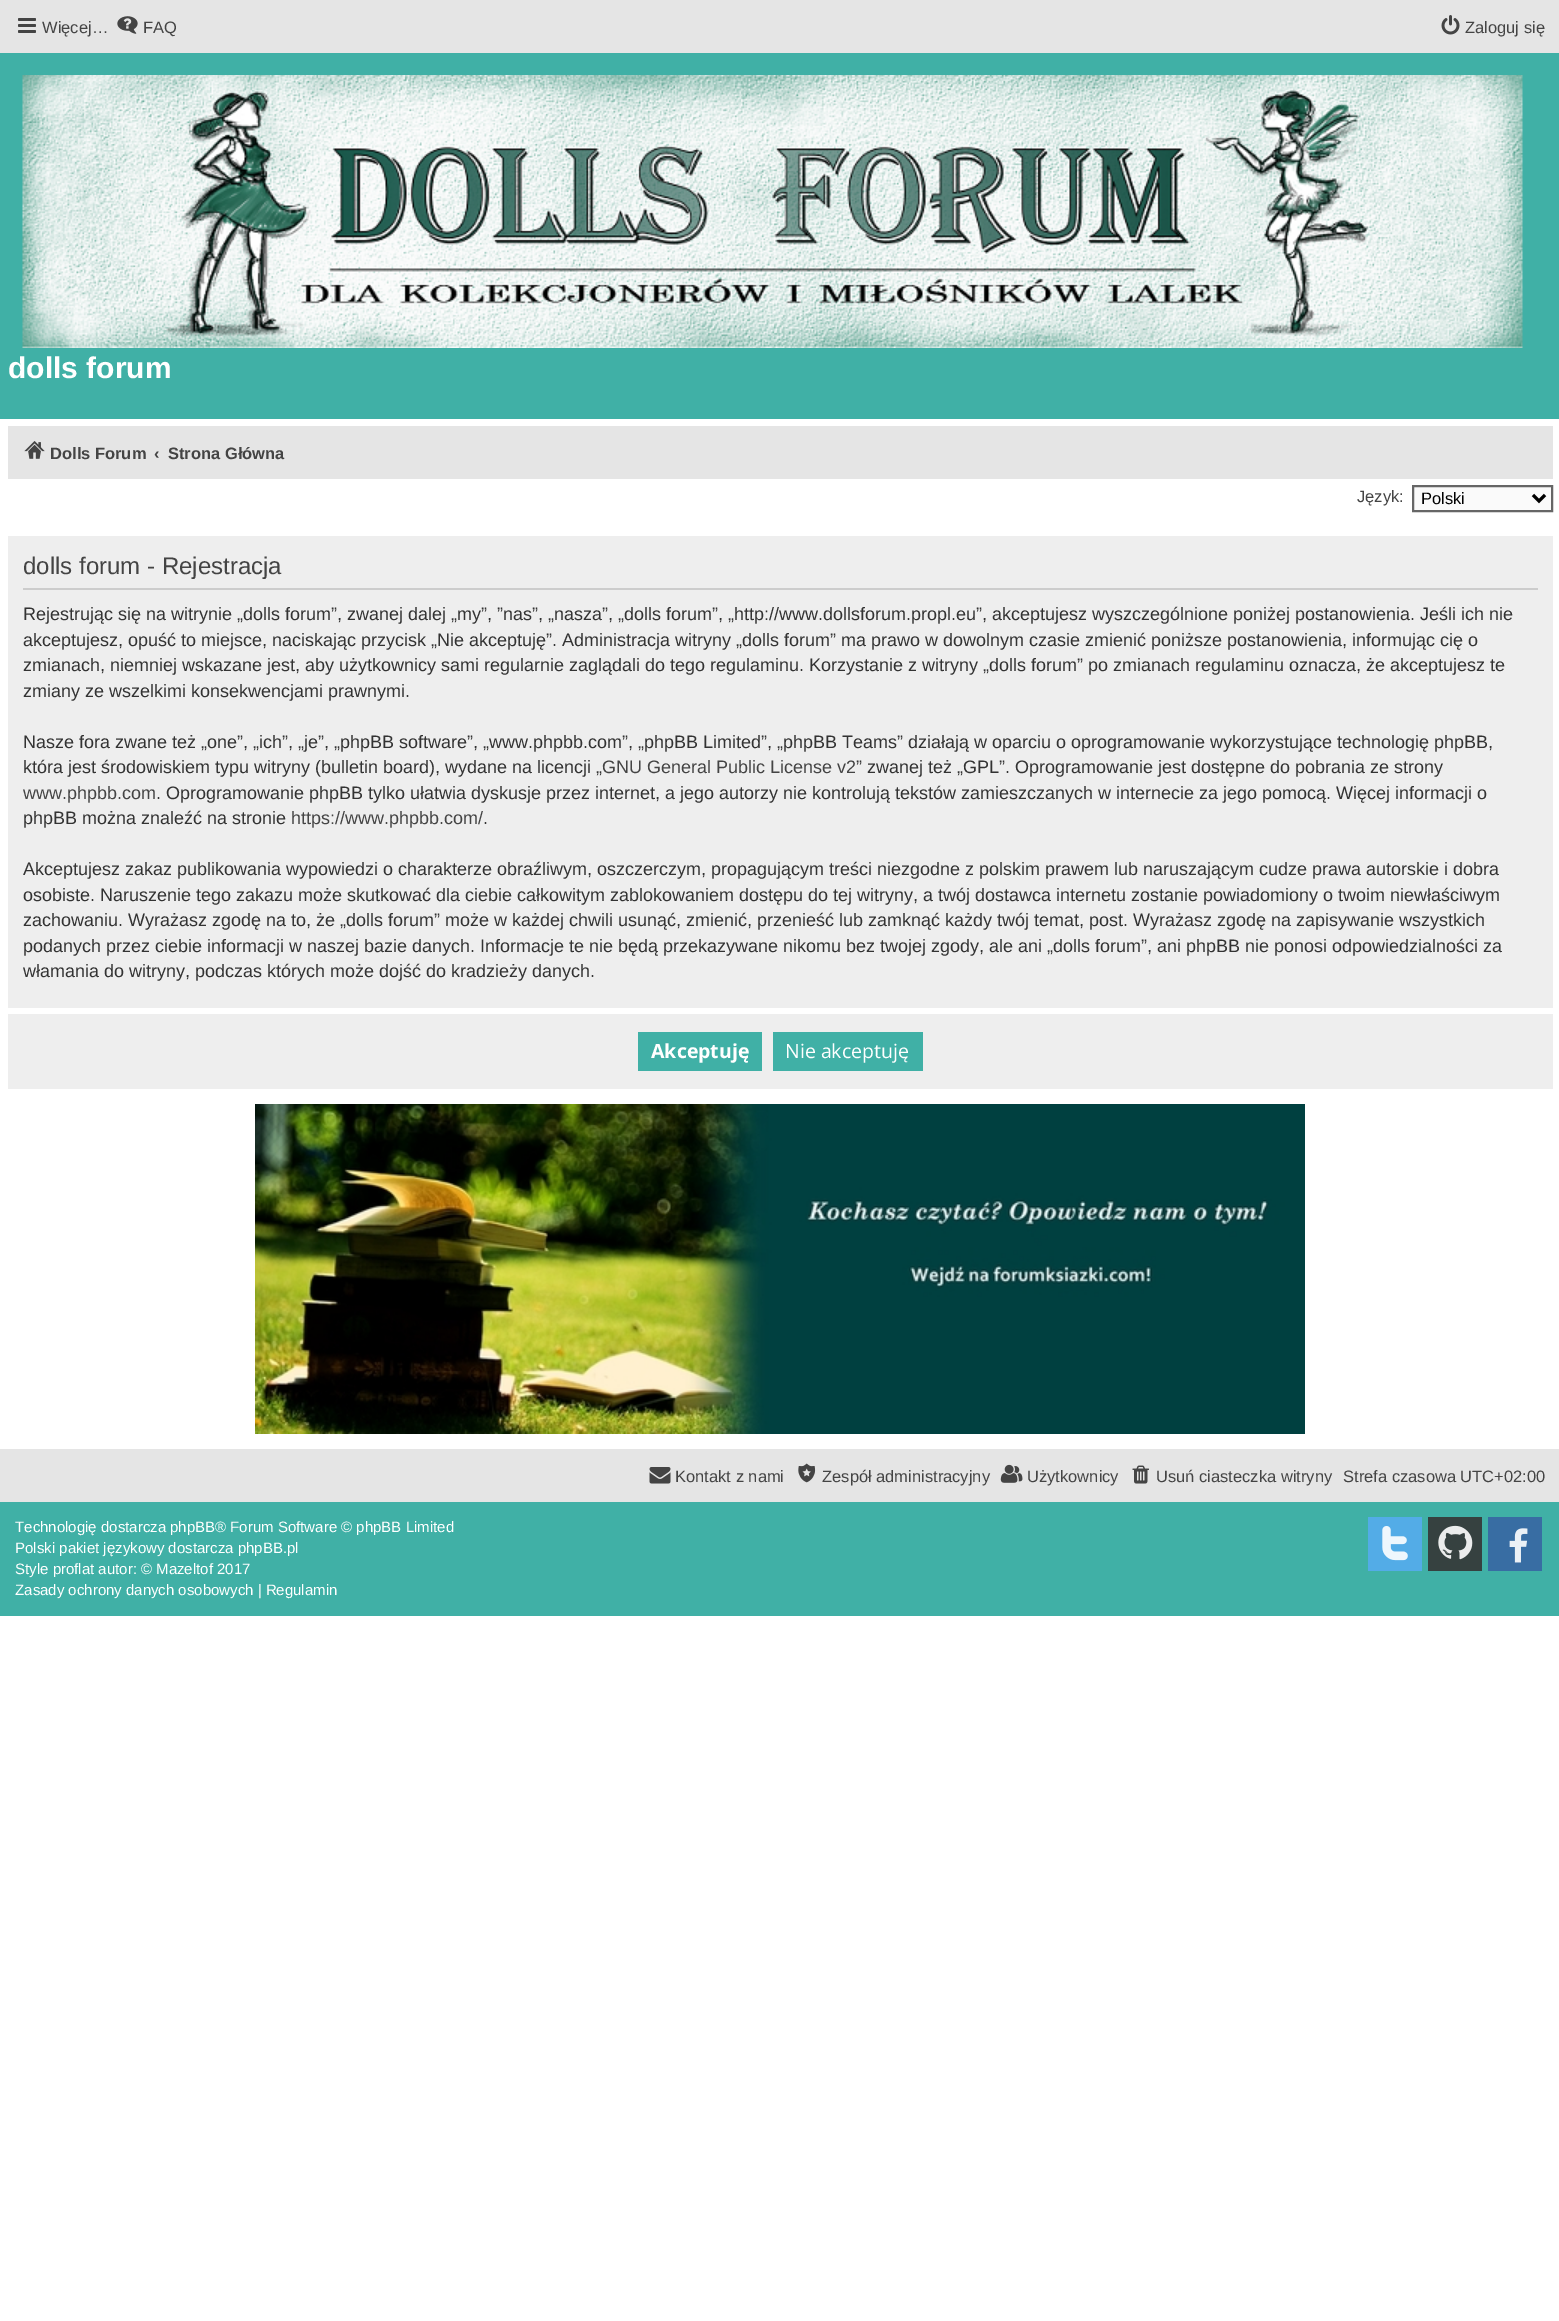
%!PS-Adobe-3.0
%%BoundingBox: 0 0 1559 2321
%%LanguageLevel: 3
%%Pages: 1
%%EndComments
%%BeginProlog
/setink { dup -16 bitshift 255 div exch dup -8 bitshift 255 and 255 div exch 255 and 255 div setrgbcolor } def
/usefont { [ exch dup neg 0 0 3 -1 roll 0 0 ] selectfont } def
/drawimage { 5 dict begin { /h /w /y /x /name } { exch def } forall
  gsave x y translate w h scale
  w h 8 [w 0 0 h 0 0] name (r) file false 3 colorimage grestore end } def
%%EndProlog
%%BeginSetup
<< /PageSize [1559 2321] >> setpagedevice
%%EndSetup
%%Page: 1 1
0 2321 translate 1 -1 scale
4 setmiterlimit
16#FFFFFF setink
0 0 1559 2321 rectfill
16#E5E5E5 setink
0 0 1559 53 rectfill
(img1.raw) 18 18 18 15 drawimage
/LiberationSans-Regular 16.5 usefont
16#444444 setink
42 33 moveto (Więcej…) show
(img2.raw) 117 16 21 18 drawimage
143 33 moveto (FAQ) show
(img3.raw) 1441 15 19 20 drawimage
1465 33 moveto (Zaloguj się) show
16#40B0A6 setink
0 53 1559 366 rectfill
(img4.raw) 22 75 1501 273 drawimage
/LiberationSans-Bold 30 usefont
16#FFFFFF setink
8 378 moveto (dolls forum) show
16#E5E5E5 setink
8 426 1545 53 rectfill
(img5.raw) 24 441 21 18 drawimage
/LiberationSans-Bold 16.5 usefont
16#444444 setink
[
    [(Dolls Forum) 50 459]
    [(‹) 154 459]
    [(Strona Główna) 168 459]
] { aload pop moveto show } forall
/LiberationSans-Regular 16.5 usefont
1357 502 moveto (Język:) show
16#FAFAFA setink
1413 486 moveto 1552 486 lineto 1552 511 lineto 1413 511 lineto closepath gsave fill grestore
16#666666 setink
2 setlinewidth
stroke
16#000000 setink
3 setlinewidth
1533 495 moveto 1539 501 lineto 1545 495 lineto stroke
1421 504 moveto (Polski) show
16#EEEEEE setink
8 536 1545 472 rectfill
16#CCCCCC setink
23 588 1515 2 rectfill
/LiberationSans-Regular 24 usefont
16#444444 setink
23 574 moveto (dolls forum - Rejestracja) show
/LiberationSans-Regular 18 usefont
16#333333 setink
[
    [(Rejestrując się na witrynie „dolls forum”, zwanej dalej „my”, ”nas”, „nasza”, „dolls forum”, „http://www.dollsforum.propl.eu”, akceptujesz wyszczególnione poniżej postanowienia. Jeśli ich nie) 23 620]
    [(akceptujesz, opuść to miejsce, naciskając przycisk „Nie akceptuję”. Administracja witryny „dolls forum” ma prawo w dowolnym czasie zmienić poniższe postanowienia, informując cię o) 23 646]
    [(zmianach, niemniej wskazane jest, aby użytkownicy sami regularnie zaglądali do tego regulaminu. Korzystanie z witryny „dolls forum” po zmianach regulaminu oznacza, że akceptujesz te) 23 671]
    [(zmiany ze wszelkimi konsekwencjami prawnymi.) 23 697]
    [(Nasze fora zwane też „one”, „ich”, „je”, „phpBB software”, „www.phpbb.com”, „phpBB Limited”, „phpBB Teams” działają w oparciu o oprogramowanie wykorzystujące technologię phpBB,) 23 748]
    [(która jest środowiskiem typu witryny \(bulletin board\), wydane na licencji „) 23 773]
] { aload pop moveto show } forall
16#444444 setink
602 773 moveto (GNU General Public License v2) show
16#333333 setink
856 773 moveto (” zwanej też „GPL”. Oprogramowanie jest dostępne do pobrania ze strony) show
16#444444 setink
23 799 moveto (www.phpbb.com) show
16#333333 setink
156 799 moveto (. Oprogramowanie phpBB tylko ułatwia dyskusje przez internet, a jego autorzy nie kontrolują tekstów zamieszczanych w internecie za jego pomocą. Więcej informacji o) show
23 824 moveto (phpBB można znaleźć na stronie) show
16#444444 setink
291 824 moveto (https://www.phpbb.com/) show
16#333333 setink
[
    [(.) 483 824]
    [(Akceptujesz zakaz publikowania wypowiedzi o charakterze obraźliwym, oszczerczym, propagującym treści niezgodne z polskim prawem lub naruszającym cudze prawa autorskie i dobra) 23 875]
    [(osobiste. Naruszenie tego zakazu może skutkować dla ciebie całkowitym zablokowaniem dostępu do tej witryny, a twój dostawca internetu zostanie powiadomiony o twoim niewłaściwym) 23 901]
    [(zachowaniu. Wyrażasz zgodę na to, że „dolls forum” może w każdej chwili usunąć, zmienić, przenieść lub zamknąć każdy twój temat, post. Wyrażasz zgodę na zapisywanie wszystkich) 23 926]
    [(podanych przez ciebie informacji w naszej bazie danych. Informacje te nie będą przekazywane nikomu bez twojej zgody, ale ani „dolls forum”, ani phpBB nie ponosi odpowiedzialności za) 23 952]
    [(włamania do witryny, podczas których może dojść do kradzieży danych.) 23 977]
] { aload pop moveto show } forall
16#EEEEEE setink
8 1014 1545 75 rectfill
16#40B0A6 setink
638 1032 124 39 rectfill
/OpenSans-Bold 19.5 usefont
16#FFFFFF setink
651 1058 moveto (Akceptuję) show
16#40B0A6 setink
773 1032 150 39 rectfill
/OpenSans-Regular 19.5 usefont
16#FFFFFF setink
785 1058 moveto (Nie akceptuję) show
(img6.raw) 255 1104 1050 330 drawimage
16#E5E5E5 setink
0 1449 1559 53 rectfill
(img7.raw) 649 1467 22 17 drawimage
/LiberationSans-Regular 16.5 usefont
16#444444 setink
675 1482 moveto (Kontakt z nami) show
(img8.raw) 798 1463 18 20 drawimage
822 1482 moveto (Zespół administracyjny) show
(img9.raw) 1000 1464 23 19 drawimage
1027 1482 moveto (Użytkownicy) show
(img10.raw) 1132 1465 17 19 drawimage
1156 1482 moveto (Usuń ciasteczka witryny) show
1343 1482 moveto (Strefa czasowa UTC+02:00) show
16#40B0A6 setink
0 1502 1559 114 rectfill
/LiberationSans-Regular 15 usefont
16#FFFFFF setink
[
    [(Technologię dostarcza phpBB® Forum Software © phpBB Limited) 15 1532]
    [(Polski pakiet językowy dostarcza phpBB.pl) 15 1553]
    [(Style proflat autor: © Mazeltof 2017) 15 1574]
    [(Zasady ochrony danych osobowych | Regulamin) 15 1595]
] { aload pop moveto show } forall
16#53ACE7 setink
1368 1517 54 54 rectfill
(img11.raw) 1382 1526 26 35 drawimage
16#364140 setink
1428 1517 54 54 rectfill
(img12.raw) 1438 1525 35 35 drawimage
16#386DA3 setink
1488 1517 54 54 rectfill
(img13.raw) 1509 1528 19 35 drawimage
showpage
%%EOF
